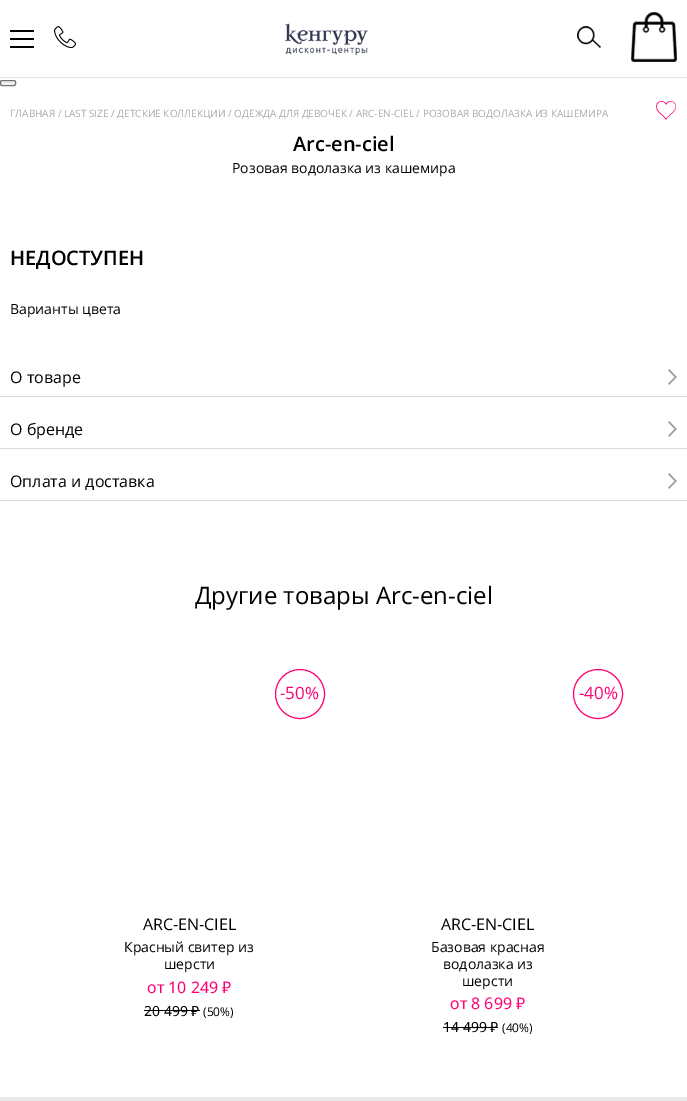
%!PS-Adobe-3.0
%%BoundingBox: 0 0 687 1101
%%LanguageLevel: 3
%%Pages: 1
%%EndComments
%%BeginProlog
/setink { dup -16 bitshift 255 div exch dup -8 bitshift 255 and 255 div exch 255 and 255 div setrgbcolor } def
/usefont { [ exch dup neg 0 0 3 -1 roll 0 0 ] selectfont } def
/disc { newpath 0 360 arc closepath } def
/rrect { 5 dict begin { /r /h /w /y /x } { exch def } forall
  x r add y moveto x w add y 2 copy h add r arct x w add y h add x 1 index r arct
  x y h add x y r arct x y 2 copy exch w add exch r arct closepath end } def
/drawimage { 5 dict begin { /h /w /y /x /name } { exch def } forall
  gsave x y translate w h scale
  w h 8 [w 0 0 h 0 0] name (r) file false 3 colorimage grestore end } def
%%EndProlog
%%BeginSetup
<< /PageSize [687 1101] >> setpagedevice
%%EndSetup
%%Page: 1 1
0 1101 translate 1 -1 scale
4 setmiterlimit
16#FFFFFF setink
0 0 687 1101 rectfill
16#EFEFEF setink
0.5 80.5 15 5 1.5 rrect gsave fill grestore
16#767676 setink
stroke
16#E2E2E2 setink
0 77 687 1 rectfill
16#000000 setink
10 30 24 2 1 rrect fill
10 38 24 2 1 rrect fill
10 46 24 2 1 rrect fill
(img1.raw) 54 26 22 22 drawimage
(img2.raw) 285 23 83 32 drawimage
(img3.raw) 577 26 24 22 drawimage
(img4.raw) 631 12 46 50 drawimage
/OpenSans-Regular 10 usefont
16#A9A8A8 setink
10 117 moveto (ГЛАВНАЯ / LAST SIZE / ДЕТСКИЕ КОЛЛЕКЦИИ / ОДЕЖДА ДЛЯ ДЕВОЧЕК / ARC-EN-CIEL / РОЗОВАЯ ВОДОЛАЗКА ИЗ КАШЕМИРА) show
(img5.raw) 655 101 22 19 drawimage
/OpenSans-SemiBold 20 usefont
16#000000 setink
293 151 moveto (Arc-en-ciel) show
/OpenSans-Regular 14 usefont
232 173 moveto (Розовая водолазка из кашемира) show
/OpenSans-SemiBold 20 usefont
10 265 moveto (НЕДОСТУПЕН) show
/OpenSans-Regular 14 usefont
10 314 moveto (Варианты цвета) show
16#D9D9D9 setink
0 396 687 1 rectfill
/OpenSans-Regular 16 usefont
16#000000 setink
10 383 moveto (О товаре) show
(img6.raw) 668 369 9 16 drawimage
16#D9D9D9 setink
0 448 687 1 rectfill
16#000000 setink
10 435 moveto (О бренде) show
(img6.raw) 668 421 9 16 drawimage
16#D9D9D9 setink
0 500 687 1 rectfill
16#000000 setink
10 487 moveto (Оплата и доставка) show
(img6.raw) 668 473 9 16 drawimage
/OpenSans-Regular 24 usefont
195 604 moveto (Другие товары Arc-en-ciel) show
16#FF0073 setink
300 694 24.5 disc stroke
/OpenSans-Regular 17 usefont
16#FF0074 setink
280 699 moveto (-50%) show
/OpenSans-Regular 16 usefont
16#000000 setink
143 930 moveto (ARC-EN-CIEL) show
/OpenSans-Regular 14 usefont
124 952 moveto (Красный свитер из) show
164 969 moveto (шерсти) show
/NotoSans-Regular 16 usefont
16#FF0074 setink
147 993 moveto (от 10 249 ₽) show
/NotoSans-Regular 14 usefont
16#000000 setink
144 1016 moveto (20 499 ₽) show
144 1010 56 1 rectfill
/OpenSans-Regular 12 usefont
203 1016 moveto (\(50%\)) show
16#FF0073 setink
598 694 24.5 disc stroke
/OpenSans-Regular 17 usefont
16#FF0074 setink
579 699 moveto (-40%) show
/OpenSans-Regular 16 usefont
16#000000 setink
441 930 moveto (ARC-EN-CIEL) show
/OpenSans-Regular 14 usefont
[
    [(Базовая красная) 431 952]
    [(водолазка из) 443 969]
    [(шерсти) 462 986]
] { aload pop moveto show } forall
/NotoSans-Regular 16 usefont
16#FF0074 setink
450 1009 moveto (от 8 699 ₽) show
/NotoSans-Regular 14 usefont
16#000000 setink
443 1032 moveto (14 499 ₽) show
443 1027 55 1 rectfill
/OpenSans-Regular 12 usefont
502 1032 moveto (\(40%\)) show
16#E9E9E9 setink
0 1097 687 4 rectfill
showpage
%%EOF
